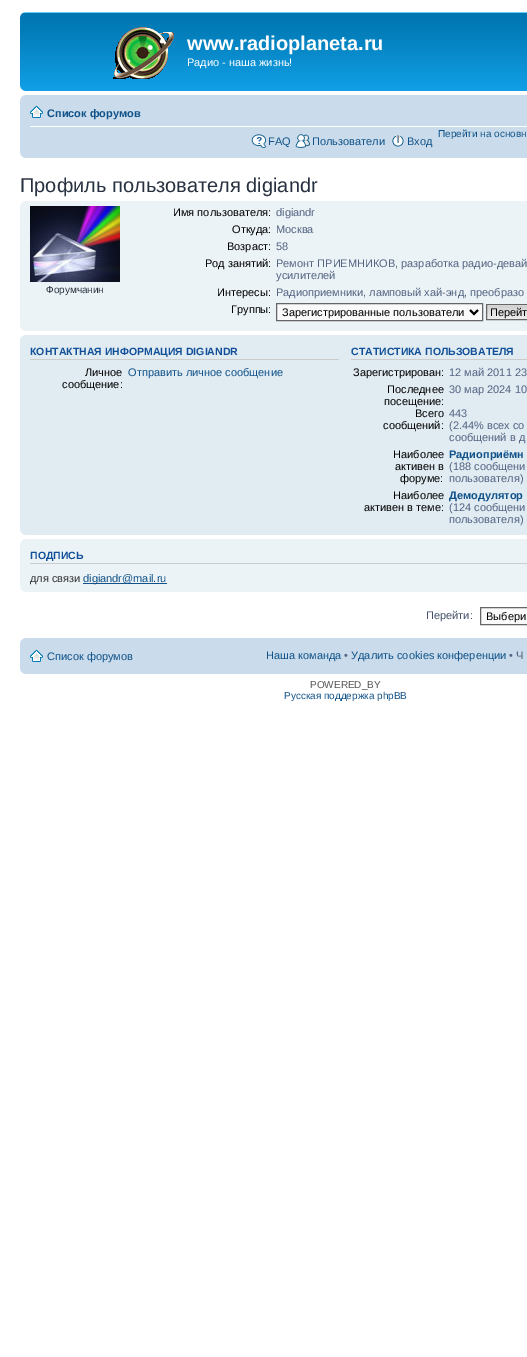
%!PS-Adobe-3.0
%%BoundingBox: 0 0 527 1357
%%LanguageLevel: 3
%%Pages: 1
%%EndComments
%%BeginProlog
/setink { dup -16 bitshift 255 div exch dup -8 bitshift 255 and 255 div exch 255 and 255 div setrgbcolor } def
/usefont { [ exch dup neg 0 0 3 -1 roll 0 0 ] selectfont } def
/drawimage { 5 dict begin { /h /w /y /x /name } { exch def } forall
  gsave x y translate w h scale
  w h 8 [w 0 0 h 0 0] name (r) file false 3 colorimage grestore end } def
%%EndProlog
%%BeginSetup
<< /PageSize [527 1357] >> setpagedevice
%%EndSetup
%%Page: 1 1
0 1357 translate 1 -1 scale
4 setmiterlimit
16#FFFFFF setink
0 0 527 1357 rectfill
(img1.raw) 20 12 507 79 drawimage
(img2.raw) 20 12 5 5 drawimage
(img3.raw) 113 27 61 52 drawimage
/LiberationSans-Bold 20 usefont
187 50 moveto (www.radioplaneta.ru) show
/LiberationSans-Regular 11 usefont
187 66 moveto (Радио - наша жизнь!) show
(img4.raw) 20 86 5 5 drawimage
16#CADCEB setink
20 95 507 63 rectfill
(img5.raw) 20 95 5 5 drawimage
16#FFFFFF setink
30 126 497 1 rectfill
(img6.raw) 30 106 13 12 drawimage
/LiberationSans-Bold 11 usefont
16#105289 setink
47 117 moveto (Список форумов) show
/LiberationSans-Regular 10 usefont
438 137 moveto (Перейти на основн) show
(img7.raw) 251 134 16 14 drawimage
/LiberationSans-Regular 11 usefont
268 145 moveto (FAQ) show
(img8.raw) 295 134 16 14 drawimage
312 145 moveto (Пользователи) show
(img9.raw) 392 135 12 12 drawimage
407 145 moveto (Вход) show
(img10.raw) 20 153 5 5 drawimage
/LiberationSans-Regular 20 usefont
16#28313F setink
20 192 moveto (Профиль пользователя digiandr) show
16#ECF3F7 setink
20 201 507 130 rectfill
(img11.raw) 20 201 5 5 drawimage
(img12.raw) 30 206 90 76 drawimage
/LiberationSans-Regular 10 usefont
16#28313F setink
46 293 moveto (Форумчанин) show
/LiberationSans-Regular 11 usefont
16#000000 setink
173 216 moveto (Имя пользователя:) show
16#536482 setink
276 216 moveto (digiandr) show
16#000000 setink
232 233 moveto (Откуда:) show
16#536482 setink
276 233 moveto (Москва) show
16#000000 setink
227 250 moveto (Возраст:) show
16#536482 setink
276 250 moveto (58) show
16#000000 setink
205 267 moveto (Род занятий:) show
16#536482 setink
276 267 moveto (Ремонт ПРИЕМНИКОВ, разработка радио-девай) show
276 279 moveto (усилителей) show
16#000000 setink
217 296 moveto (Интересы:) show
16#536482 setink
276 296 moveto (Радиоприемники, ламповый хай-энд, преобразо) show
16#000000 setink
231 313 moveto (Группы:) show
16#FAFAFA setink
276.5 303.5 moveto 482.5 303.5 lineto 482.5 320.5 lineto 276.5 320.5 lineto closepath gsave fill grestore
16#666666 setink
stroke
16#000000 setink
2 setlinewidth
470 310 moveto 474 314 lineto 478 310 lineto stroke
282 316 moveto (Зарегистрированные пользователи) show
(img13.raw) 487 305 40 14 drawimage
16#666666 setink
1 setlinewidth
486.5 304.5 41 15 rectstroke
16#000000 setink
490 316 moveto (Перейт) show
(img14.raw) 20 326 5 5 drawimage
16#E1EBF2 setink
20 335 507 200 rectfill
(img15.raw) 20 335 5 5 drawimage
16#CCCCCC setink
30 359 309 1 rectfill
/LiberationSans-Bold 10.5 usefont
16#115098 setink
30 355 moveto (КОНТАКТНАЯ ИНФОРМАЦИЯ DIGIANDR) show
/LiberationSans-Regular 11 usefont
16#000000 setink
85 376 moveto (Личное) show
62 388 moveto (сообщение:) show
16#105289 setink
128 376 moveto (Отправить личное сообщение) show
16#CCCCCC setink
351 359 176 1 rectfill
/LiberationSans-Bold 10.5 usefont
16#115098 setink
351 355 moveto (СТАТИСТИКА ПОЛЬЗОВАТЕЛЯ) show
/LiberationSans-Regular 11 usefont
16#000000 setink
353 376 moveto (Зарегистрирован:) show
16#536482 setink
449 376 moveto (12 май 2011 23) show
16#000000 setink
387 393 moveto (Последнее) show
384 405 moveto (посещение:) show
16#536482 setink
449 393 moveto (30 мар 2024 10) show
16#000000 setink
415 417 moveto (Всего) show
383 429 moveto (сообщений:) show
16#536482 setink
[
    [(443) 449 417]
    [(\(2.44% всех со) 449 429]
    [(сообщений в д) 449 441]
] { aload pop moveto show } forall
16#000000 setink
[
    [(Наиболее) 393 458]
    [(активен в) 395 470]
    [(форуме:) 400 482]
] { aload pop moveto show } forall
/LiberationSans-Bold 11 usefont
16#105289 setink
449 458 moveto (Радиоприёмн) show
/LiberationSans-Regular 11 usefont
16#536482 setink
449 470 moveto (\(188 сообщени) show
449 482 moveto (пользователя\)) show
16#000000 setink
393 499 moveto (Наиболее) show
364 511 moveto (активен в теме:) show
/LiberationSans-Bold 11 usefont
16#105289 setink
449 499 moveto (Демодулятор) show
/LiberationSans-Regular 11 usefont
16#536482 setink
449 511 moveto (\(124 сообщени) show
449 523 moveto (пользователя\)) show
(img16.raw) 20 530 5 5 drawimage
16#ECF3F7 setink
20 539 507 53 rectfill
(img11.raw) 20 539 5 5 drawimage
16#CCCCCC setink
30 563 497 1 rectfill
/LiberationSans-Bold 10.5 usefont
16#115098 setink
30 559 moveto (ПОДПИСЬ) show
/LiberationSans-Regular 11 usefont
16#333333 setink
30 582 moveto (для связи) show
16#105289 setink
83 583 84 1 rectfill
83 582 moveto (digiandr@mail.ru) show
(img14.raw) 20 587 5 5 drawimage
16#425067 setink
426 619 moveto (Перейти:) show
16#FAFAFA setink
480.5 607.5 moveto 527.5 607.5 lineto 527.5 624.5 lineto 480.5 624.5 lineto closepath gsave fill grestore
16#666666 setink
stroke
16#000000 setink
486 620 moveto (Выбери) show
16#CADCEB setink
20 638 507 36 rectfill
(img5.raw) 20 638 5 5 drawimage
(img6.raw) 30 650 13 12 drawimage
16#105289 setink
47 660 moveto (Список форумов) show
266 659 moveto (Наша команда) show
16#536482 setink
344 659 moveto (•) show
16#105289 setink
351 659 moveto (Удалить cookies конференции) show
16#536482 setink
509 659 moveto (• Ч) show
(img10.raw) 20 669 5 5 drawimage
/LiberationSans-Regular 10 usefont
16#555555 setink
310 688 moveto (POWERED_BY) show
16#105289 setink
284 699 moveto (Русская поддержка phpBB) show
showpage
%%EOF
